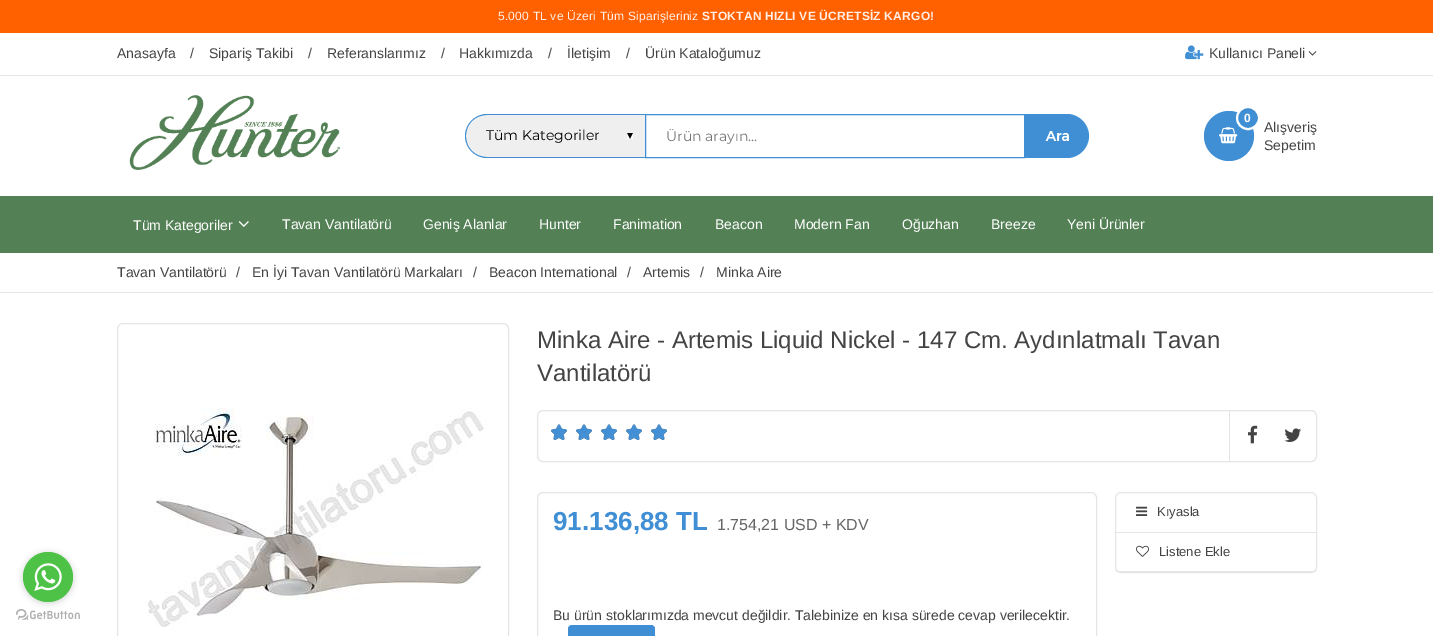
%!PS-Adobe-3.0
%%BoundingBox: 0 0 1433 636
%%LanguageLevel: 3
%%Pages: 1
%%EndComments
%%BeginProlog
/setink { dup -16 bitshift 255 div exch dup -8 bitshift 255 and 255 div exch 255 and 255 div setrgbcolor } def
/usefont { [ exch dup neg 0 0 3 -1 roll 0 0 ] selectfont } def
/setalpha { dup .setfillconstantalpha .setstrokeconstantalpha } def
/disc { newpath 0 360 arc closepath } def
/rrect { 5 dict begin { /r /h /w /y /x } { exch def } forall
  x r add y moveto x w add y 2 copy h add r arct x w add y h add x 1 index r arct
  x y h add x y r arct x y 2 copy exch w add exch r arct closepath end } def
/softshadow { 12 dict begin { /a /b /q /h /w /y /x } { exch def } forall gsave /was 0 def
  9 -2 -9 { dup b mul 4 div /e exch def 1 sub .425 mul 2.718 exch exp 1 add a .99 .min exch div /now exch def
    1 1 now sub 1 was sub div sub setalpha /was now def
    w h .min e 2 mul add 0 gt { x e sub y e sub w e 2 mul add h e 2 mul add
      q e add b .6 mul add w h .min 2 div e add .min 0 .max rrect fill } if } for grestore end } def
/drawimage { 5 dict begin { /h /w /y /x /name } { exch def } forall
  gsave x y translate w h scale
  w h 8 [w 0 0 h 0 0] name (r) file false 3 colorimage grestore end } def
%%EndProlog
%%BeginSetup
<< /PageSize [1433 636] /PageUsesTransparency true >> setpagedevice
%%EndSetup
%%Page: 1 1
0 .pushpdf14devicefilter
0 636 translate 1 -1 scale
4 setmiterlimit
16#FFFFFF setink
0 0 1433 636 rectfill
16#FF6100 setink
0 0 1433 33 rectfill
/LiberationSans-Regular 12 usefont
16#FFEFE6 setink
498 20 moveto 0.2 0 (5.000 TL ve Üzeri Tüm Siparişleriniz) ashow
/LiberationSans-Bold 12 usefont
702 20 moveto 0.2 0 (STOKTAN HIZLI VE ÜCRETSİZ KARGO!) ashow
(img2.raw) 16 609 64 11 drawimage
16#888888 setink
23 553 50 50 25 3.5 0.4 softshadow
16#4DC247 setink
48 577 25 disc fill
(img1.raw) 34 563 28 28 drawimage
16#E5E5E5 setink
0 75 1433 1 rectfill
/LiberationSans-Regular 14 usefont
16#444444 setink
[
    [(Anasayfa) 117 58]
    [(/) 190 58]
    [(Sipariş Takibi) 209 58]
    [(/) 308 58]
    [(Referanslarımız) 327 58]
    [(/) 441 58]
    [(Hakkımızda) 459 58]
    [(/) 548 58]
    [(İletişim) 567 58]
    [(/) 626 58]
    [(Ürün Kataloğumuz) 645 58]
] { aload pop moveto show } forall
(img3.raw) 1185 45 19 15 drawimage
1209 58 moveto (Kullanıcı Paneli) show
(img4.raw) 1308 51 9 5 drawimage
(img5.raw) 129 95 212 75 drawimage
16#EFEFEF setink
487 114 moveto 645 114 lineto 645 158 lineto 487 158 lineto 475 158 465 148 465 136 curveto 465 124 475 114 487 114 curveto closepath fill
(img6.raw) 627 133 6 6 drawimage
16#408ED4 setink
487 114 moveto 645 114 lineto 645 158 lineto 487 158 lineto 475 158 465 148 465 136 curveto 465 124 475 114 487 114 curveto closepath 487 115 moveto 645 115 lineto 645 157 lineto 487 157 lineto 475 157 466 148 466 136 curveto 466 124 475 115 487 115 curveto closepath eofill
/Montserrat-Regular 14 usefont
16#000000 setink
486 140 moveto (Tüm Kategoriler) show
16#408ED4 setink
645.5 114.5 379 43 rectstroke
16#757575 setink
666 141 moveto (Ürün arayın...) show
16#408ED4 setink
1025 114 moveto 1067 114 lineto 1079 114 1089 124 1089 136 curveto 1089 148 1079 158 1067 158 curveto 1025 158 lineto closepath fill
(img7.raw) 1045 131 24 10 drawimage
1229 136 25 disc fill
(img8.raw) 1219 127 19 17 drawimage
1248 118 11 disc gsave fill grestore
16#FFFFFF setink
2 setlinewidth
stroke
/LiberationSans-Bold 12 usefont
1244 122 moveto (0) show
/LiberationSans-Regular 14 usefont
16#444444 setink
1264 132 moveto (Alışveriş) show
1264 150 moveto (Sepetim) show
16#538054 setink
0 196 1433 57 rectfill
16#FFFFFF setink
133 230 moveto (Tüm Kategoriler) show
(img9.raw) 238 221 11 6 drawimage
[
    [(Tavan Vantilatörü) 282 229]
    [(Geniş Alanlar) 423 229]
    [(Hunter) 539 229]
    [(Fanimation) 613 229]
    [(Beacon) 715 229]
    [(Modern Fan) 794 229]
    [(Oğuzhan) 902 229]
    [(Breeze) 991 229]
    [(Yeni Ürünler) 1067 229]
] { aload pop moveto show } forall
16#E5E5E5 setink
0 292 1433 1 rectfill
16#444444 setink
[
    [(Tavan Vantilatörü) 117 277]
    [(/) 236 277]
    [(En İyi Tavan Vantilatörü Markaları) 252 277]
    [(/) 473 277]
    [(Beacon International) 489 277]
    [(/) 627 277]
    [(Artemis) 643 277]
    [(/) 700 277]
    [(Minka Aire) 716 277]
] { aload pop moveto show } forall
16#E5E5E5 setink
1 setlinewidth
117.5 323.5 391 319 5.5 rrect stroke
(img10.raw) 146 408 341 220 drawimage
/LiberationSans-Regular 24 usefont
16#444444 setink
537 348 moveto (Minka Aire - Artemis Liquid Nickel - 147 Cm. Aydınlatmalı Tavan) show
537 381 moveto (Vantilatörü) show
16#E5E5E5 setink
537.5 410.5 779 51 5.5 rrect stroke
(img11.raw) 551 424 116 16 drawimage
(img12.raw) 551 424 116 16 drawimage
1229 411 1 50 rectfill
(img13.raw) 1248 425 10 19 drawimage
(img14.raw) 1284 428 17 14 drawimage
537.5 492.5 559 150 5.5 rrect stroke
/LiberationSans-Bold 26 usefont
16#408ED4 setink
553 530 moveto (91.136,88 TL) show
/LiberationSans-Regular 16 usefont
16#666666 setink
717 530 moveto (1.754,21 USD + KDV) show
/LiberationSans-Regular 14 usefont
16#444444 setink
553 620 moveto (Bu ürün stoklarımızda mevcut değildir. Talebinize en kısa sürede cevap verilecektir.) show
16#408ED4 setink
568 625 87 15 4 rrect fill
16#E5E5E5 setink
1115.5 492.5 201 80 5.5 rrect stroke
1116 532 200 1 rectfill
(img15.raw) 1136 506 12 10 drawimage
/LiberationSans-Regular 13 usefont
16#444444 setink
1157 516 moveto (Kıyasla) show
16#E5E5E5 setink
1116 571 200 1 rectfill
(img16.raw) 1136 545 13 12 drawimage
16#444444 setink
1159 556 moveto (Listene Ekle) show
.poppdf14devicefilter showpage
%%EOF
